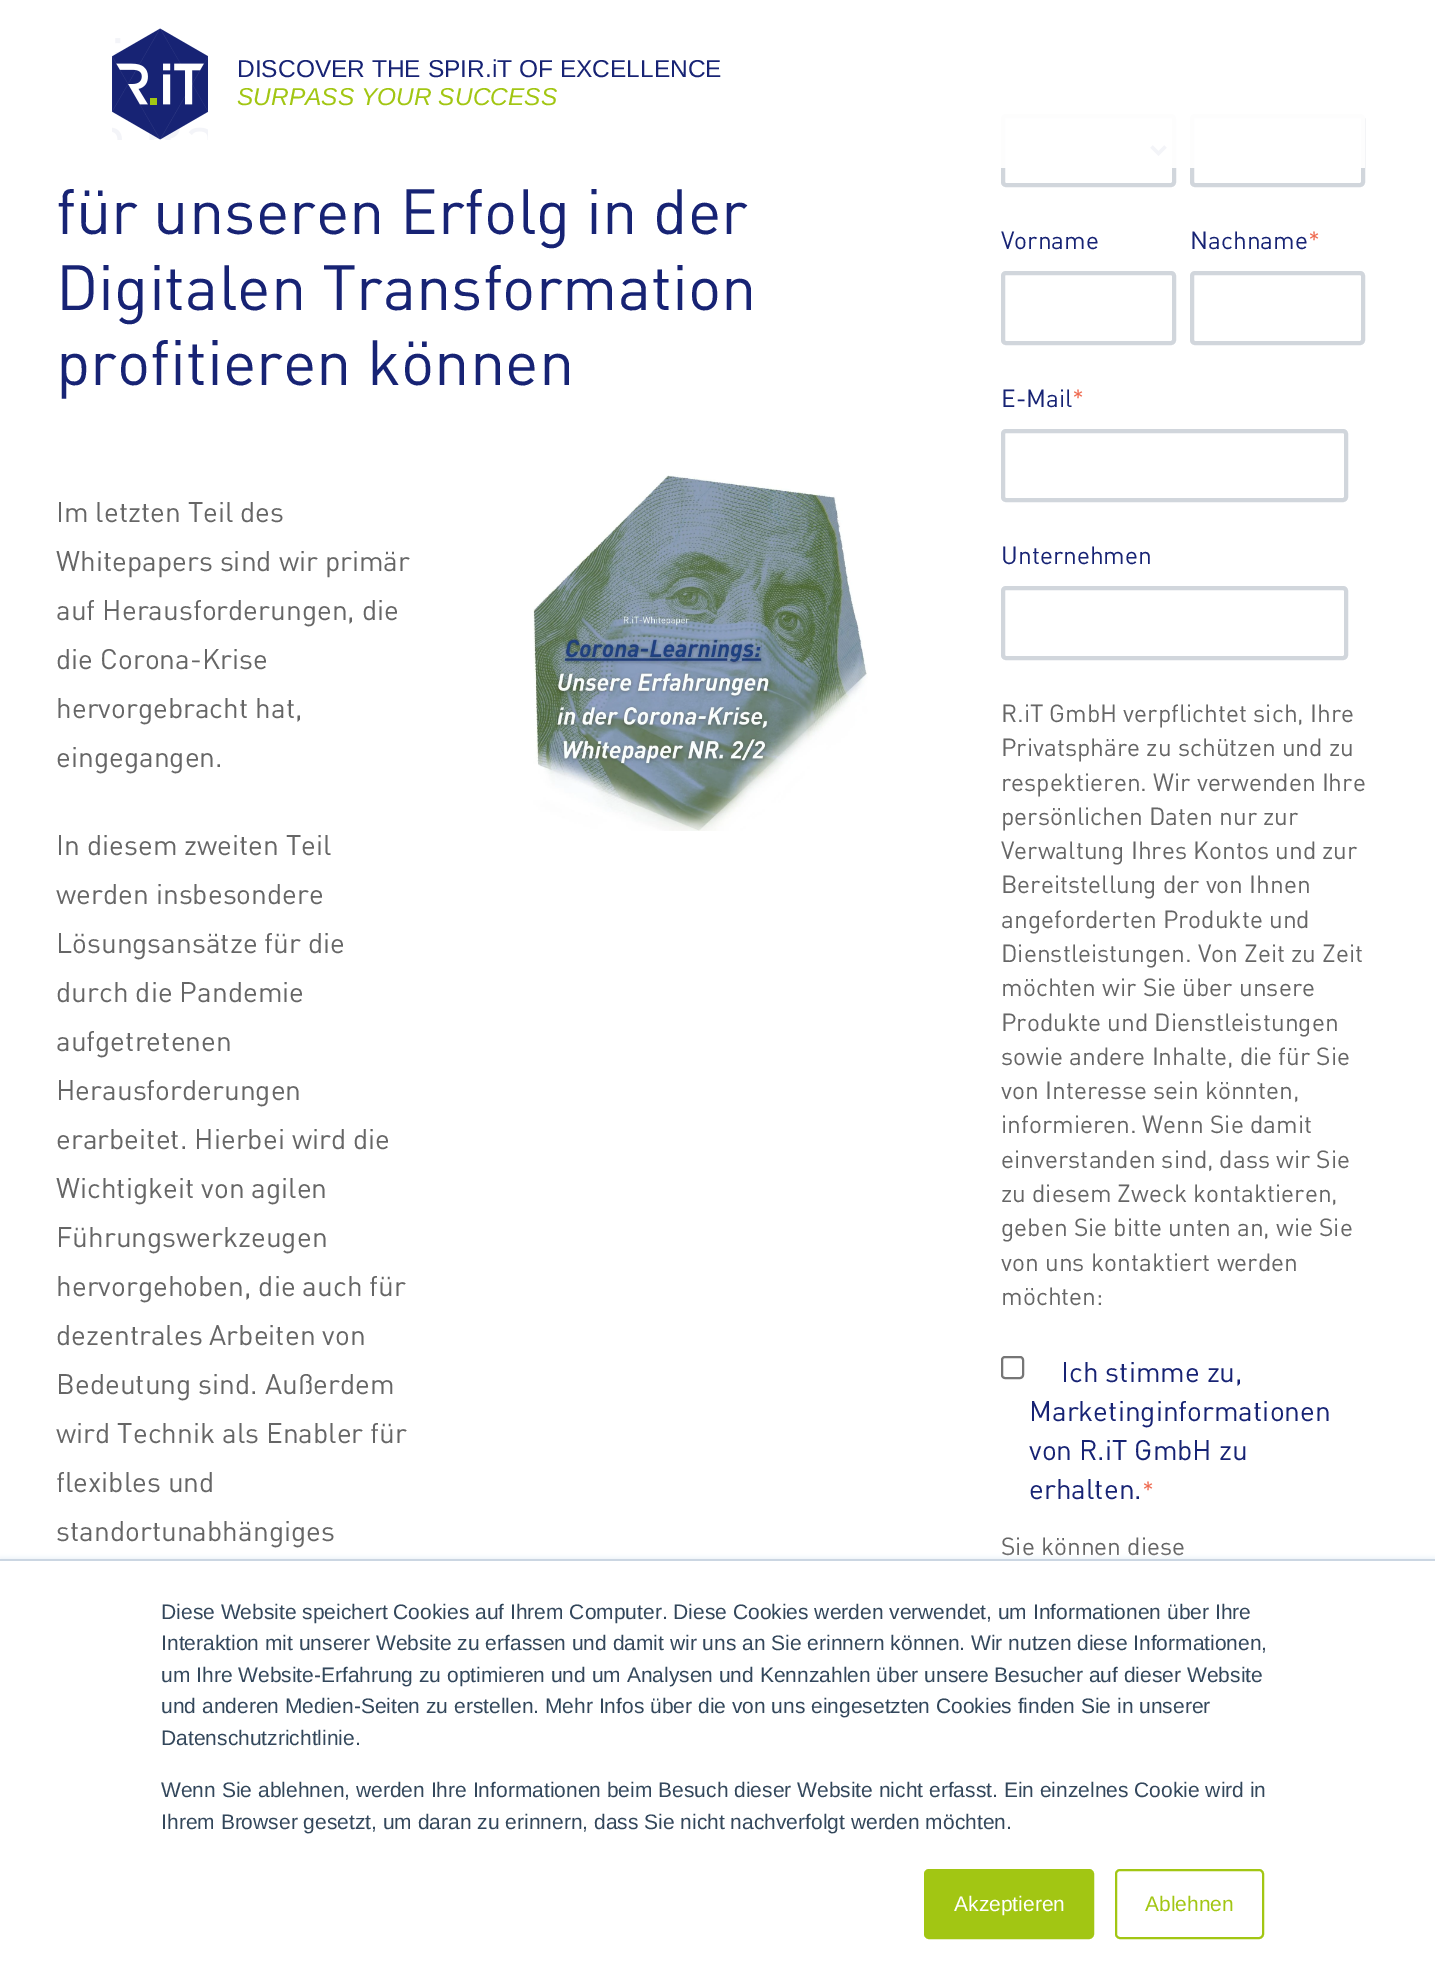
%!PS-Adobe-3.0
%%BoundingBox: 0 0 1435 1983
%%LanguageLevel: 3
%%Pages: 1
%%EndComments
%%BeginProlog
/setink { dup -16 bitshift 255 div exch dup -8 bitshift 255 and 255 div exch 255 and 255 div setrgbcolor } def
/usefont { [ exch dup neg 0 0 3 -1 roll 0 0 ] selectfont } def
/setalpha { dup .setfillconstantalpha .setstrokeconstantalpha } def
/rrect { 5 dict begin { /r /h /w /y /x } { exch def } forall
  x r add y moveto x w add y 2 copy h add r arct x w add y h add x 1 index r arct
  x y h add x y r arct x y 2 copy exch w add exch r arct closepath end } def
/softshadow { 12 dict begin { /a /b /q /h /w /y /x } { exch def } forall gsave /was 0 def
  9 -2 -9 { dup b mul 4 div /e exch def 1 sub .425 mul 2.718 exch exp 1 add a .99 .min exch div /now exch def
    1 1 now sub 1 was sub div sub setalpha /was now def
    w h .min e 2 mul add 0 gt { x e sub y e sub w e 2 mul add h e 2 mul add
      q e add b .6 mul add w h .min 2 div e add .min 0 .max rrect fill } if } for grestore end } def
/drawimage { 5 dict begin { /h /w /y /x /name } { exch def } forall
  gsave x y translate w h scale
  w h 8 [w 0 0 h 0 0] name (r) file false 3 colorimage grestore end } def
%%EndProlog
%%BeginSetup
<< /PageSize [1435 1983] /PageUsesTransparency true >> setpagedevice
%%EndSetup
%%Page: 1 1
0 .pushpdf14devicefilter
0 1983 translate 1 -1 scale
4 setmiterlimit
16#FFFFFF setink
0 0 1435 1983 rectfill
16#D1D6DC setink
4 setlinewidth
1003 116 171 69 3 rrect stroke
16#172374 setink
3.5 setlinewidth
1151.5 146.5 moveto 1158.5 153.5 lineto 1165.5 146.5 lineto stroke
16#D1D6DC setink
4 setlinewidth
1192 116 171 69 3 rrect stroke
0.95 setalpha
16#FFFFFF setink
1001 114 364 54 rectfill
1 setalpha
(img1.raw) 112 28 96 112 drawimage
/LiberationSans-Regular 24.5 usefont
16#172374 setink
237 77 moveto (DISCOVER THE SPIR.iT OF EXCELLENCE) show
/LiberationSans-Italic 24.5 usefont
16#A2C613 setink
237 105 moveto (SURPASS YOUR SUCCESS) show
/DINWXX-Regular 63 usefont
16#172374 setink
[
    [(für unseren Erfolg in der) 56 234]
    [(Digitalen Transformation) 56 310]
    [(profitieren können) 56 385]
] { aload pop moveto show } forall
/DINWXX-Regular 28 usefont
16#666666 setink
[
    [(Im letzten Teil des) 56 522]
    [(Whitepapers sind wir primär) 56 571]
    [(auf Herausforderungen, die) 56 620]
    [(die Corona-Krise) 56 669]
    [(hervorgebracht hat,) 56 718]
    [(eingegangen.) 56 767]
    [(In diesem zweiten Teil) 56 855]
    [(werden insbesondere) 56 904]
    [(Lösungsansätze für die) 56 953]
    [(durch die Pandemie) 56 1002]
    [(aufgetretenen) 56 1051]
    [(Herausforderungen) 56 1100]
    [(erarbeitet. Hierbei wird die) 56 1149]
    [(Wichtigkeit von agilen) 56 1198]
    [(Führungswerkzeugen) 56 1247]
    [(hervorgehoben, die auch für) 56 1296]
    [(dezentrales Arbeiten von) 56 1345]
    [(Bedeutung sind. Außerdem) 56 1394]
    [(wird Technik als Enabler für) 56 1443]
    [(flexibles und) 56 1492]
    [(standortunabhängiges) 56 1541]
] { aload pop moveto show } forall
(img2.raw) 533 475 335 356 drawimage
/DINWXX-Regular 24.5 usefont
16#172374 setink
1001 249 moveto (Vorname) show
16#D1D6DC setink
1003 273 171 70 3 rrect stroke
16#172374 setink
1190 249 moveto (Nachname) show
16#EF6B51 setink
1308 249 moveto (*) show
16#D1D6DC setink
1192 273 171 70 3 rrect stroke
16#172374 setink
1001 407 moveto (E-Mail) show
16#EF6B51 setink
1072 407 moveto (*) show
16#D1D6DC setink
1003 431 343 69 3 rrect stroke
16#172374 setink
1001 564 moveto (Unternehmen) show
16#D1D6DC setink
1003 588 343 70 3 rrect stroke
16#666666 setink
[
    [(R.iT GmbH verpflichtet sich, Ihre) 1001 722]
    [(Privatsphäre zu schützen und zu) 1001 756]
    [(respektieren. Wir verwenden Ihre) 1001 791]
    [(persönlichen Daten nur zur) 1001 825]
    [(Verwaltung Ihres Kontos und zur) 1001 859]
    [(Bereitstellung der von Ihnen) 1001 893]
    [(angeforderten Produkte und) 1001 928]
    [(Dienstleistungen. Von Zeit zu Zeit) 1001 962]
    [(möchten wir Sie über unsere) 1001 996]
    [(Produkte und Dienstleistungen) 1001 1031]
    [(sowie andere Inhalte, die für Sie) 1001 1065]
    [(von Interesse sein könnten,) 1001 1099]
    [(informieren. Wenn Sie damit) 1001 1133]
    [(einverstanden sind, dass wir Sie) 1001 1168]
    [(zu diesem Zweck kontaktieren,) 1001 1202]
    [(geben Sie bitte unten an, wie Sie) 1001 1236]
    [(von uns kontaktiert werden) 1001 1271]
    [(möchten:) 1001 1305]
] { aload pop moveto show } forall
16#767676 setink
2 setlinewidth
1002 1357 21 21 3 rrect stroke
/DINWXX-Regular 28 usefont
16#172374 setink
[
    [(Ich stimme zu,) 1061 1382]
    [(Marketinginformationen) 1029 1421]
    [(von R.iT GmbH zu) 1029 1460]
    [(erhalten.) 1029 1499]
] { aload pop moveto show } forall
/DINWXX-Regular 24.5 usefont
16#EF6B51 setink
1142 1499 moveto (*) show
16#666666 setink
1001 1555 moveto (Sie können diese) show
16#EAF0F6 setink
0 1558 1435 425 0 2.5 1 softshadow
16#FFFFFF setink
0 1561 1435 422 rectfill
16#CBD6E2 setink
0 1559 1435 2 rectfill
/LiberationSans-Regular 21 usefont
16#33475B setink
[
    [(Diese Website speichert Cookies auf Ihrem Computer. Diese Cookies werden verwendet, um Informationen über Ihre) 161 1619]
    [(Interaktion mit unserer Website zu erfassen und damit wir uns an Sie erinnern können. Wir nutzen diese Informationen,) 161 1650]
    [(um Ihre Website-Erfahrung zu optimieren und um Analysen und Kennzahlen über unsere Besucher auf dieser Website) 161 1682]
    [(und anderen Medien-Seiten zu erstellen. Mehr Infos über die von uns eingesetzten Cookies finden Sie in unserer) 161 1713]
    [(Datenschutzrichtlinie.) 161 1745]
    [(Wenn Sie ablehnen, werden Ihre Informationen beim Besuch dieser Website nicht erfasst. Ein einzelnes Cookie wird in) 161 1797]
    [(Ihrem Browser gesetzt, um daran zu erinnern, dass Sie nicht nachverfolgt werden möchten.) 161 1829]
] { aload pop moveto show } forall
16#A2C613 setink
925 1870 168 68 4 rrect gsave fill grestore
stroke
16#FFFFFF setink
954 1911 moveto (Akzeptieren) show
16#A2C613 setink
1116 1870 147 68 4 rrect stroke
1145 1911 moveto (Ablehnen) show
.poppdf14devicefilter showpage
%%EOF
